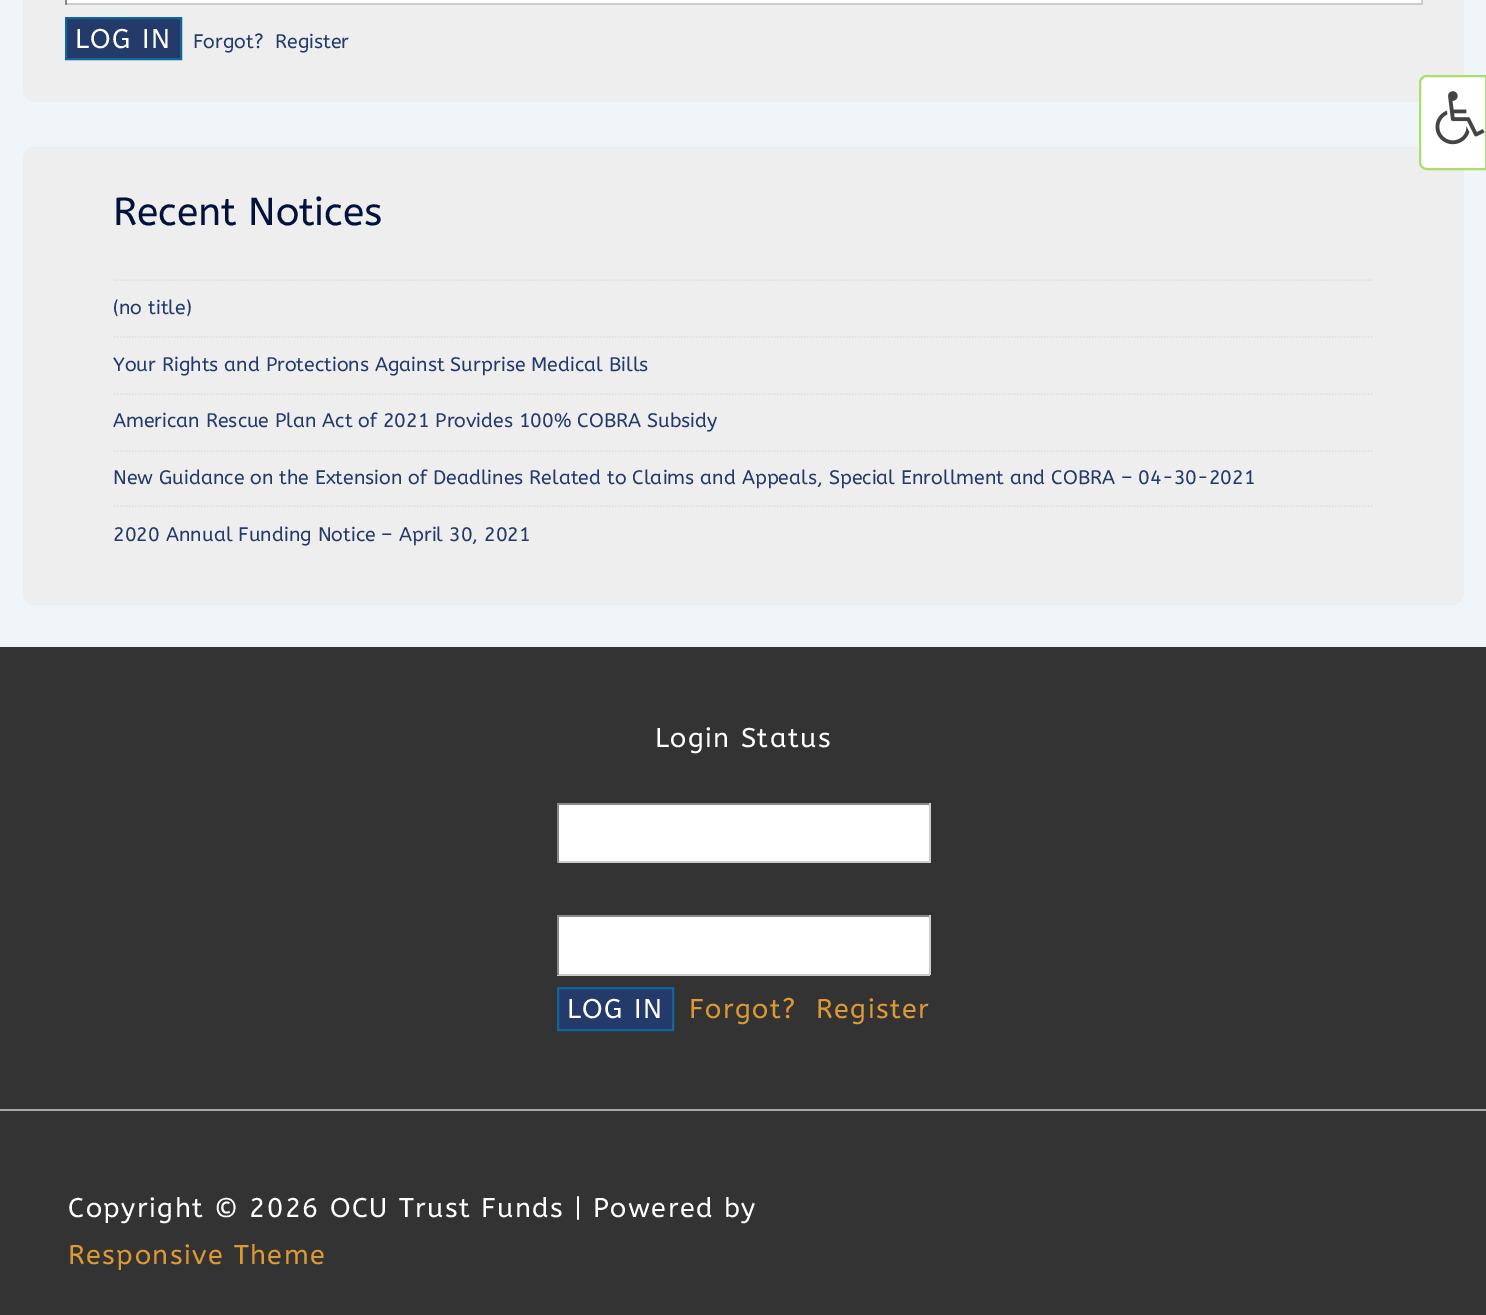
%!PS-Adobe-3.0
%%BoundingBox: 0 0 1486 1315
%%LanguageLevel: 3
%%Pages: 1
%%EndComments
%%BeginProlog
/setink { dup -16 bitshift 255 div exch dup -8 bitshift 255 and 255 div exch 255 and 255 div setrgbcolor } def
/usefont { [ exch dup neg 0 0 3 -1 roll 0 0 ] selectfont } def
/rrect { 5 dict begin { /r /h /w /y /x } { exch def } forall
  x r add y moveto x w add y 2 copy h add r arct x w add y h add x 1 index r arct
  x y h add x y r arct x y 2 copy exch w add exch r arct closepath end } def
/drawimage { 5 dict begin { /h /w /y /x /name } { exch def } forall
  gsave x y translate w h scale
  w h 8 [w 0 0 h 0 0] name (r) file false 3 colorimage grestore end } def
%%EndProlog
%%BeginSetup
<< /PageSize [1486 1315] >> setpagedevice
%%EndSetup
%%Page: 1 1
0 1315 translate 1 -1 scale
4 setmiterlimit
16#F0F5FA setink
0 0 1486 1315 rectfill
16#EEEEEE setink
23 -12 1441 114 12 rrect fill
[
    [65 0 1357 3 16#FFFFFF]
    [1421 0 2 5 16#CCCCCC]
    [65 3 1357 2 16#CCCCCC]
    [65 0 2 5 16#888888]
] { aload pop setink rectfill } forall
16#233A6B setink
66 18 moveto 181 18 lineto 181 59 lineto 66 59 lineto closepath gsave fill grestore
16#10659C setink
2 setlinewidth
stroke
/ABeeZee-Regular 27 usefont
16#FFFFFF setink
75 48 moveto 1.5 0 (LOG IN) ashow
/ABeeZee-Regular 19.5 usefont
16#233A6B setink
193 48 moveto (Forgot?) show
275 48 moveto (Register) show
16#EEEEEE setink
23 147 1441 458 12 rrect fill
/ABeeZee-Regular 39 usefont
16#01133D setink
113 225 moveto (Recent Notices) show
16#E0E0E0 setink
1.5 setlinewidth
[1.5 1.5] 0 setdash
114 280 moveto 1374 280 lineto stroke
/ABeeZee-Regular 19.5 usefont
16#233A6B setink
113 314 moveto (\(no title\)) show
16#E0E0E0 setink
114 337 moveto 1374 337 lineto stroke
16#233A6B setink
113 371 moveto (Your Rights and Protections Against Surprise Medical Bills) show
16#E0E0E0 setink
114 394 moveto 1374 394 lineto stroke
16#233A6B setink
113 427 moveto (American Rescue Plan Act of 2021 Provides 100% COBRA Subsidy) show
16#E0E0E0 setink
114 451 moveto 1374 451 lineto stroke
16#233A6B setink
113 484 moveto (New Guidance on the Extension of Deadlines Related to Claims and Appeals, Special Enrollment and COBRA – 04-30-2021) show
16#E0E0E0 setink
114 506 moveto 1374 506 lineto stroke
16#233A6B setink
113 541 moveto (2020 Annual Funding Notice – April 30, 2021) show
16#333333 setink
0 647 1486 668 rectfill
/ABeeZee-Regular 27 usefont
16#FFFFFF setink
655 747 moveto 1.5 0 (Login Status) ashow
[
    [559 805 370 56 16#FFFFFF]
    [557 803 373 2 16#888888]
    [929 803 2 60 16#CCCCCC]
    [557 861 373 2 16#CCCCCC]
    [557 803 2 60 16#888888]
    [559 917 370 57 16#FFFFFF]
    [557 915 373 2 16#888888]
    [929 915 2 60 16#CCCCCC]
    [557 974 373 2 16#CCCCCC]
    [557 915 2 60 16#888888]
] { aload pop setink rectfill } forall
16#233A6B setink
558 988 moveto 673 988 lineto 673 1030 lineto 558 1030 lineto closepath gsave fill grestore
16#10659C setink
2 setlinewidth
[] 0 setdash
stroke
16#FFFFFF setink
567 1018 moveto 1.5 0 (LOG IN) ashow
16#DD9933 setink
689 1018 moveto 1.5 0 (Forgot?) ashow
816 1018 moveto 1.5 0 (Register) ashow
16#AAAAAA setink
0 1109 1486 2 rectfill
16#FFFFFF setink
68 1217 moveto 1.5 0 (Copyright © 2026 OCU Trust Funds | Powered by) ashow
16#DD9933 setink
68 1264 moveto 1.5 0 (Responsive Theme) ashow
16#FFFFFF setink
1427 76 moveto 1486 76 lineto 1486 169 lineto 1427 169 lineto 1423 169 1420 166 1420 162 curveto 1420 83 lineto 1420 79 1423 76 1427 76 curveto closepath gsave fill grestore
16#A9DD6E setink
stroke
(img1.raw) 1435 91 50 54 drawimage
showpage
%%EOF
